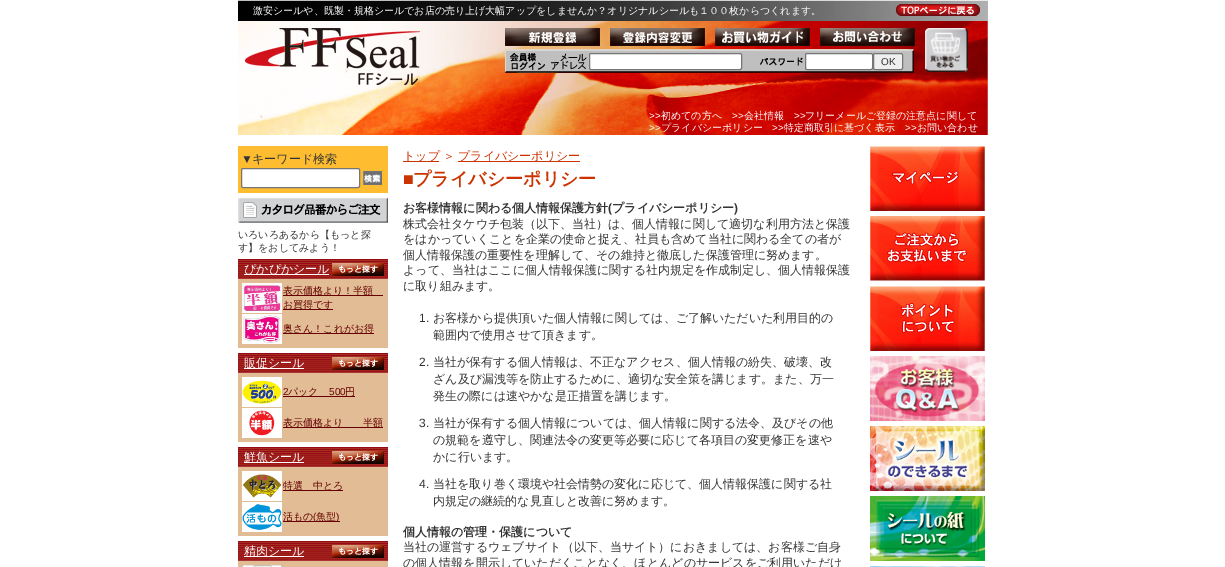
%!PS-Adobe-3.0
%%BoundingBox: 0 0 1225 567
%%LanguageLevel: 3
%%Pages: 1
%%EndComments
%%BeginProlog
/setink { dup -16 bitshift 255 div exch dup -8 bitshift 255 and 255 div exch 255 and 255 div setrgbcolor } def
/usefont { [ exch dup neg 0 0 3 -1 roll 0 0 ] selectfont } def
/rrect { 5 dict begin { /r /h /w /y /x } { exch def } forall
  x r add y moveto x w add y 2 copy h add r arct x w add y h add x 1 index r arct
  x y h add x y r arct x y 2 copy exch w add exch r arct closepath end } def
/drawimage { 5 dict begin { /h /w /y /x /name } { exch def } forall
  gsave x y translate w h scale
  w h 8 [w 0 0 h 0 0] name (r) file false 3 colorimage grestore end } def
%%EndProlog
%%BeginSetup
<< /PageSize [1225 567] >> setpagedevice
%%EndSetup
%%Page: 1 1
0 567 translate 1 -1 scale
4 setmiterlimit
16#FFFFFF setink
0 0 1225 567 rectfill
(img1.raw) 238 0 750 135 drawimage
/WenQuanYiZenHei-Medium 10 usefont
253 14 moveto (激安シールや、既製・規格シールでお店の売り上げ大幅アップをしませんか？オリジナルシールも１００枚からつくれます。) show
(img2.raw) 896 4 84 12 drawimage
(img3.raw) 245 28 175 57 drawimage
(img4.raw) 505 28 95 18 drawimage
(img5.raw) 610 28 95 18 drawimage
(img6.raw) 715 28 95 18 drawimage
(img7.raw) 820 28 95 18 drawimage
(img8.raw) 505 49 5 24 drawimage
(img9.raw) 587 49 2 24 drawimage
(img10.raw) 510 49 77 24 drawimage
(img11.raw) 589 49 171 24 drawimage
589.5 53.5 152 16 1.5 rrect gsave fill grestore
16#767676 setink
stroke
(img12.raw) 760 49 45 24 drawimage
(img13.raw) 805 49 68 24 drawimage
16#FFFFFF setink
805.5 53.5 67 16 1.5 rrect gsave fill grestore
16#767676 setink
stroke
(img14.raw) 873 49 36 24 drawimage
16#EFEFEF setink
873.5 53.5 29 16 1.5 rrect gsave fill grestore
16#767676 setink
stroke
/LiberationSans-Regular 10 usefont
16#333333 setink
881 65 moveto (OK) show
(img15.raw) 909 49 5 24 drawimage
(img16.raw) 925 28 43 44 drawimage
16#FFFFFF setink
649 119 moveto (>>) show
/WenQuanYiZenHei-Medium 10 usefont
661 119 moveto (初めての方へ) show
/LiberationSans-Regular 10 usefont
732 119 moveto (>>) show
/WenQuanYiZenHei-Medium 10 usefont
744 119 moveto (会社情報) show
/LiberationSans-Regular 10 usefont
794 119 moveto (>>) show
/WenQuanYiZenHei-Medium 10 usefont
805 119 moveto (フリーメールご登録の注意点に関して) show
/LiberationSans-Regular 10 usefont
649 131 moveto (>>) show
/WenQuanYiZenHei-Medium 10 usefont
661 131 moveto (プライバシーポリシー) show
/LiberationSans-Regular 10 usefont
772 131 moveto (>>) show
/WenQuanYiZenHei-Medium 10 usefont
784 131 moveto (特定商取引に基づく表示) show
/LiberationSans-Regular 10 usefont
905 131 moveto (>>) show
/WenQuanYiZenHei-Medium 10 usefont
917 131 moveto (お問い合わせ) show
16#FEBD31 setink
238 146 150 47 rectfill
/LiberationSans-Regular 12 usefont
16#333333 setink
241 163 moveto (▼) show
/WenQuanYiZenHei-Medium 12 usefont
252 163 moveto (キーワード検索) show
16#FFFFFF setink
241.5 168.5 118 19 1.5 rrect gsave fill grestore
16#767676 setink
stroke
(img17.raw) 363 171 19 14 drawimage
(img18.raw) 238 198 150 25 drawimage
/WenQuanYiZenHei-Medium 10 usefont
16#333333 setink
238 238 moveto (いろいろあるから【もっと探) show
238 251 moveto (す】をおしてみよう！) show
16#E1BC95 setink
238 279 150 69 rectfill
(img19.raw) 238 259 150 20 drawimage
16#FFFFFF setink
244 274 85 1 rectfill
/WenQuanYiZenHei-Medium 12 usefont
244 273 moveto (ぴかぴかシール) show
(img20.raw) 332 263 52 13 drawimage
(img21.raw) 242 283 40 30 drawimage
16#660000 setink
283 295 100 1 rectfill
/WenQuanYiZenHei-Medium 10 usefont
283 294 moveto (表示価格より！半額) show
283 309 50 1 rectfill
283 308 moveto (お買得です) show
(img22.raw) 242 314 40 30 drawimage
283 333 91 1 rectfill
283 332 moveto (奥さん！これがお得) show
16#E1BC95 setink
238 373 150 69 rectfill
(img19.raw) 238 353 150 20 drawimage
16#FFFFFF setink
244 368 60 1 rectfill
/WenQuanYiZenHei-Medium 12 usefont
244 367 moveto (販促シール) show
(img20.raw) 332 357 52 13 drawimage
(img23.raw) 242 377 40 30 drawimage
/LiberationSans-Regular 10 usefont
16#660000 setink
283 395 moveto (2) show
283 396 72 1 rectfill
/WenQuanYiZenHei-Medium 10 usefont
288 395 moveto (パック) show
/LiberationSans-Regular 10 usefont
329 395 moveto (500) show
/WenQuanYiZenHei-Medium 10 usefont
345 395 moveto (円) show
(img24.raw) 242 408 40 30 drawimage
283 427 100 1 rectfill
283 426 moveto (表示価格より　　半額) show
16#E1BC95 setink
238 467 150 69 rectfill
(img19.raw) 238 447 150 20 drawimage
16#FFFFFF setink
244 462 60 1 rectfill
/WenQuanYiZenHei-Medium 12 usefont
244 461 moveto (鮮魚シール) show
(img20.raw) 332 451 52 13 drawimage
(img25.raw) 242 471 40 30 drawimage
16#660000 setink
283 490 60 1 rectfill
/WenQuanYiZenHei-Medium 10 usefont
283 489 moveto (特選　中とろ) show
(img26.raw) 242 502 40 30 drawimage
283 521 57 1 rectfill
283 520 moveto (活もの) show
/LiberationSans-Regular 10 usefont
313 520 moveto (\() show
/WenQuanYiZenHei-Medium 10 usefont
316 520 moveto (魚型) show
/LiberationSans-Regular 10 usefont
336 520 moveto (\)) show
16#E1BC95 setink
238 561 150 6 rectfill
(img19.raw) 238 541 150 20 drawimage
16#FFFFFF setink
244 556 60 1 rectfill
/WenQuanYiZenHei-Medium 12 usefont
244 555 moveto (精肉シール) show
(img20.raw) 332 545 52 13 drawimage
(img27.raw) 242 565 40 2 drawimage
16#CC3300 setink
403 161 36 1 rectfill
403 160 moveto (トップ ＞) show
458 161 122 1 rectfill
458 160 moveto (プライバシーポリシー) show
/LiberationSans-Bold 18 usefont
403 185 moveto (■) show
/WenQuanYiZenHei-Bold 18 usefont
413 185 moveto (プライバシーポリシー) show
/WenQuanYiZenHei-Bold 12 usefont
16#333333 setink
403 212 moveto (お客様情報に関わる個人情報保護方針) show
/LiberationSans-Bold 12 usefont
608 212 moveto (\() show
/WenQuanYiZenHei-Bold 12 usefont
612 212 moveto (プライバシーポリシー) show
/LiberationSans-Bold 12 usefont
734 212 moveto (\)) show
/WenQuanYiZenHei-Medium 12 usefont
[
    [(株式会社タケウチ包装（以下、当社）は、個人情報に関して適切な利用方法と保護) 403 228]
    [(をはかっていくことを企業の使命と捉え、社員も含めて当社に関わる全ての者が) 403 243]
    [(個人情報保護の重要性を理解して、その維持と徹底した保護管理に努めます。) 403 259]
    [(よって、当社はここに個人情報保護に関する社内規定を作成制定し、個人情報保護) 403 274]
    [(に取り組みます。) 403 290]
] { aload pop moveto show } forall
/LiberationSans-Regular 12 usefont
419 322 moveto (1.) show
/WenQuanYiZenHei-Medium 12 usefont
433 322 moveto (お客様から提供頂いた個人情報に関しては、ご了解いただいた利用目的の) show
433 339 moveto (範囲内で使用させて頂きます。) show
/LiberationSans-Regular 12 usefont
419 366 moveto (2.) show
/WenQuanYiZenHei-Medium 12 usefont
[
    [(当社が保有する個人情報は、不正なアクセス、個人情報の紛失、破壊、改) 433 366]
    [(ざん及び漏洩等を防止するために、適切な安全策を講じます。また、万一) 433 383]
    [(発生の際には速やかな是正措置を講じます。) 433 400]
] { aload pop moveto show } forall
/LiberationSans-Regular 12 usefont
419 427 moveto (3.) show
/WenQuanYiZenHei-Medium 12 usefont
[
    [(当社が保有する個人情報については、個人情報に関する法令、及びその他) 433 427]
    [(の規範を遵守し、関連法令の変更等必要に応じて各項目の変更修正を速や) 433 444]
    [(かに行います。) 433 461]
] { aload pop moveto show } forall
/LiberationSans-Regular 12 usefont
419 488 moveto (4.) show
/WenQuanYiZenHei-Medium 12 usefont
433 488 moveto (当社を取り巻く環境や社会情勢の変化に応じて、個人情報保護に関する社) show
433 505 moveto (内規定の継続的な見直しと改善に努めます。) show
/WenQuanYiZenHei-Bold 12 usefont
403 536 moveto (個人情報の管理・保護について) show
/WenQuanYiZenHei-Medium 12 usefont
403 551 moveto (当社の運営するウェブサイト（以下、当サイト）におきましては、お客様ご自身) show
403 567 moveto (の個人情報を開示していただくことなく、ほとんどのサービスをご利用いただけ) show
(img28.raw) 870 146 115 65 drawimage
(img29.raw) 870 216 115 65 drawimage
(img30.raw) 870 286 115 65 drawimage
(img31.raw) 870 356 115 65 drawimage
(img32.raw) 870 426 115 65 drawimage
(img33.raw) 870 496 115 65 drawimage
(img34.raw) 870 566 115 1 drawimage
showpage
%%EOF
